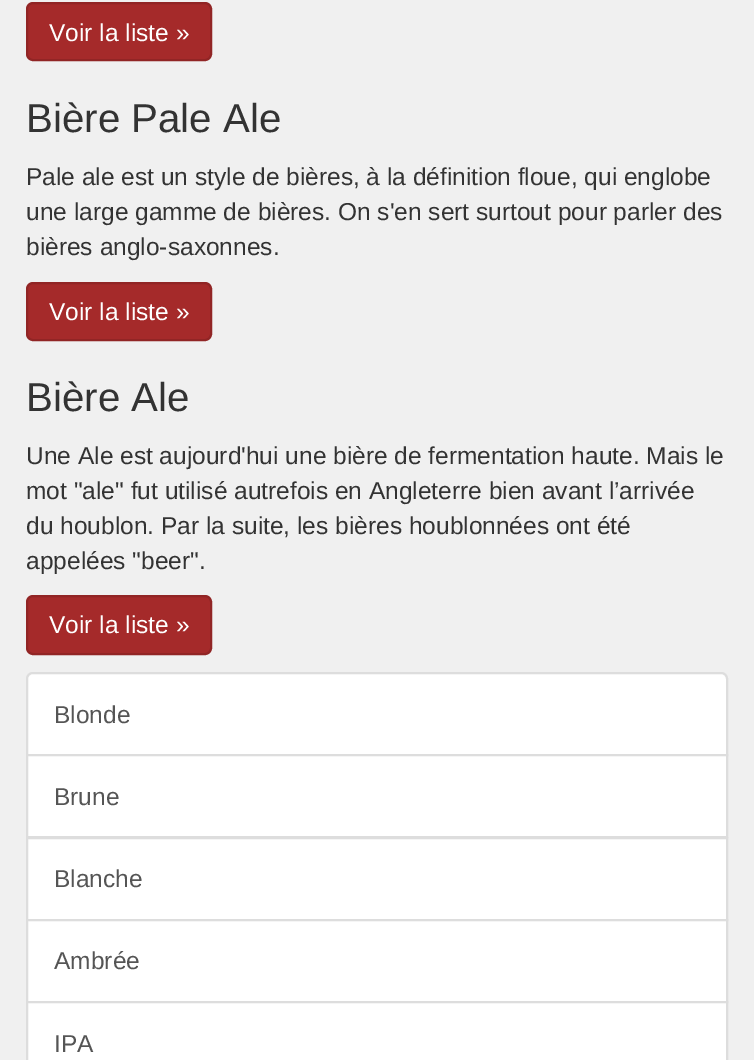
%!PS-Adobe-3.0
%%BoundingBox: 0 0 754 1060
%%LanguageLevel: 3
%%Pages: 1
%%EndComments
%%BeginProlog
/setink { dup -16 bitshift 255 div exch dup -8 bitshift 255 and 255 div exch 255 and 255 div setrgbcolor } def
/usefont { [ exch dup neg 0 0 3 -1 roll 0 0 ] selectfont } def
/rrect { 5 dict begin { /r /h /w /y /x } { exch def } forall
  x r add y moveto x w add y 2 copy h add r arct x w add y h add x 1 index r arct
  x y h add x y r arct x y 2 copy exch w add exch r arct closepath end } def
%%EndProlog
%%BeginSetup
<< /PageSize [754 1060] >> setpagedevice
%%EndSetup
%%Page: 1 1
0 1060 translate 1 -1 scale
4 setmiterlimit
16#F0F0F0 setink
0 0 754 1060 rectfill
16#A52A2A setink
27 3 184 57 6 rrect gsave fill grestore
16#912525 setink
2 setlinewidth
stroke
/LiberationSans-Regular 24.5 usefont
16#FFFFFF setink
49 41 moveto (Voir la liste ») show
/LiberationSans-Regular 40.25 usefont
16#333333 setink
26 132 moveto (Bière Pale Ale) show
/LiberationSans-Regular 24.5 usefont
[
    [(Pale ale est un style de bières, à la définition floue, qui englobe) 26 185]
    [(une large gamme de bières. On s'en sert surtout pour parler des) 26 220]
    [(bières anglo-saxonnes.) 26 255]
] { aload pop moveto show } forall
16#A52A2A setink
27 283 184 57 6 rrect gsave fill grestore
16#912525 setink
stroke
16#FFFFFF setink
49 320 moveto (Voir la liste ») show
/LiberationSans-Regular 40.25 usefont
16#333333 setink
26 411 moveto (Bière Ale) show
/LiberationSans-Regular 24.5 usefont
[
    [(Une Ale est aujourd'hui une bière de fermentation haute. Mais le) 26 464]
    [(mot "ale" fut utilisé autrefois en Angleterre bien avant l’arrivée) 26 499]
    [(du houblon. Par la suite, les bières houblonnées ont été) 26 534]
    [(appelées "beer".) 26 569]
] { aload pop moveto show } forall
16#A52A2A setink
27 596 184 58 6 rrect gsave fill grestore
16#912525 setink
stroke
16#FFFFFF setink
49 633 moveto (Voir la liste ») show
33 673 moveto 721 673 lineto 724.5 673 727 675.5 727 679 curveto 727 755 lineto 27 755 lineto 27 679 lineto 27 675.5 29.5 673 33 673 curveto closepath gsave fill grestore
16#DDDDDD setink
stroke
16#555555 setink
54 723 moveto (Blonde) show
16#FFFFFF setink
27 755 moveto 727 755 lineto 727 837 lineto 27 837 lineto closepath gsave fill grestore
16#DDDDDD setink
stroke
16#555555 setink
54 805 moveto (Brune) show
16#FFFFFF setink
27 838 moveto 727 838 lineto 727 920 lineto 27 920 lineto closepath gsave fill grestore
16#DDDDDD setink
stroke
16#555555 setink
54 887 moveto (Blanche) show
16#FFFFFF setink
27 920 moveto 727 920 lineto 727 1002 lineto 27 1002 lineto closepath gsave fill grestore
16#DDDDDD setink
stroke
16#555555 setink
54 969 moveto (Ambrée) show
16#FFFFFF setink
27 1002 moveto 727 1002 lineto 727 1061 lineto 27 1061 lineto closepath gsave fill grestore
16#DDDDDD setink
stroke
16#555555 setink
54 1052 moveto (IPA) show
showpage
%%EOF
